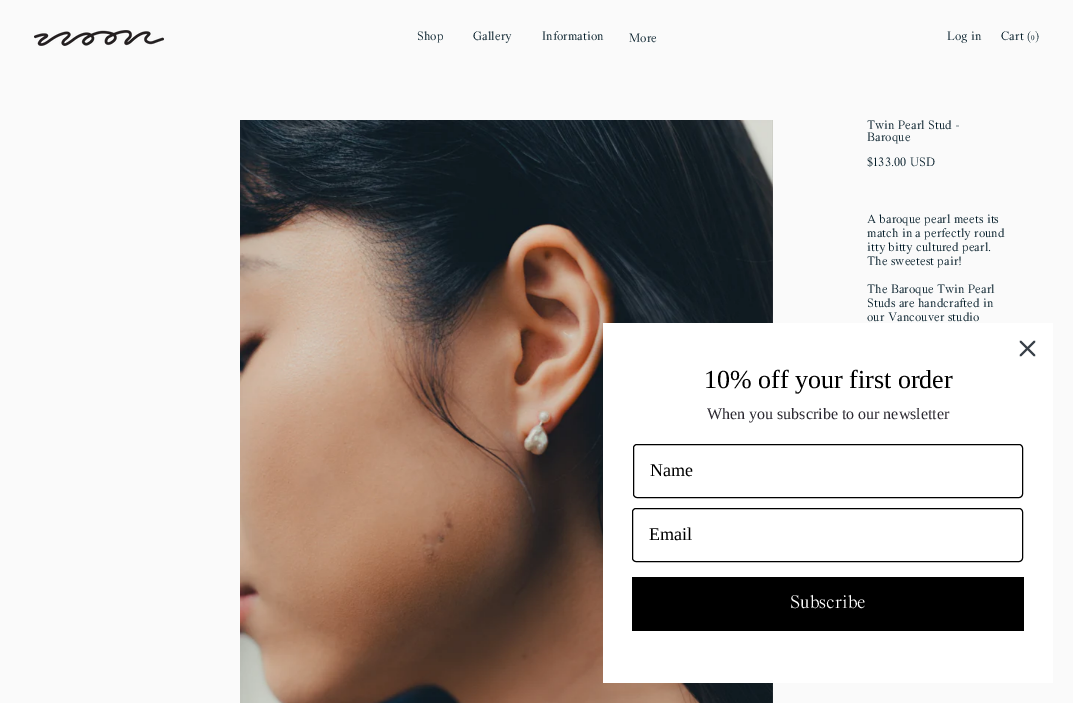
%!PS-Adobe-3.0
%%BoundingBox: 0 0 1073 703
%%LanguageLevel: 3
%%Pages: 1
%%EndComments
%%BeginProlog
/setink { dup -16 bitshift 255 div exch dup -8 bitshift 255 and 255 div exch 255 and 255 div setrgbcolor } def
/usefont { [ exch dup neg 0 0 3 -1 roll 0 0 ] selectfont } def
/rrect { 5 dict begin { /r /h /w /y /x } { exch def } forall
  x r add y moveto x w add y 2 copy h add r arct x w add y h add x 1 index r arct
  x y h add x y r arct x y 2 copy exch w add exch r arct closepath end } def
/drawimage { 5 dict begin { /h /w /y /x /name } { exch def } forall
  gsave x y translate w h scale
  w h 8 [w 0 0 h 0 0] name (r) file false 3 colorimage grestore end } def
%%EndProlog
%%BeginSetup
<< /PageSize [1073 703] >> setpagedevice
%%EndSetup
%%Page: 1 1
0 703 translate 1 -1 scale
4 setmiterlimit
16#FAFAFA setink
0 0 1073 703 rectfill
(img1.raw) 34 30 130 16 drawimage
/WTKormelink-Regular 12 usefont
16#001925 setink
[
    [(Shop) 417 40]
    [(Gallery) 473 40]
    [(Information) 542 40]
    [(More) 629 42]
    [(Log in) 947 40]
    [(Cart \() 1001 40]
] { aload pop moveto show } forall
/WTKormelink-Regular 7 usefont
1031 40 moveto (0) show
/WTKormelink-Regular 12 usefont
1035 40 moveto (\)) show
(img2.raw) 240 120 533 583 drawimage
[
    [(Twin Pearl Stud -) 867 129]
    [(Baroque) 867 141]
    [($133.00 USD) 867 166]
    [(A baroque pearl meets its) 867 223]
    [(match in a perfectly round) 867 237]
    [(itty bitty cultured pearl.) 867 251]
    [(The sweetest pair!) 867 265]
    [(The Baroque Twin Pearl) 867 293]
    [(Studs are handcrafted in) 867 307]
    [(our Vancouver studio) 867 321]
] { aload pop moveto show } forall
16#FFFFFF setink
603 323 450 360 rectfill
16#373F47 setink
1.8 setlinewidth
1 setlinecap
1 setlinejoin
1020.5 341.5 moveto 1034.5 355.5 lineto 1020.5 355.5 moveto 1034.5 341.5 lineto closepath stroke
/LiberationSerif-Regular 26 usefont
16#000000 setink
704 388 moveto (10% off your first order) show
/LiberationSerif-Regular 16 usefont
16#2B2830 setink
707 419 moveto (When you subscribe to our newsletter) show
16#000000 setink
1 setlinewidth
0 setlinecap
0 setlinejoin
633.5 444.5 389 53 3.5 rrect stroke
/LiberationSerif-Regular 18 usefont
650 476 moveto (Name) show
632.5 508.5 390 53 3.5 rrect stroke
649 540 moveto (Email) show
632 577 392 54 rectfill
/WTKormelink-Regular 18 usefont
16#FFFFFF setink
790 608 moveto (Subscribe) show
showpage
%%EOF
